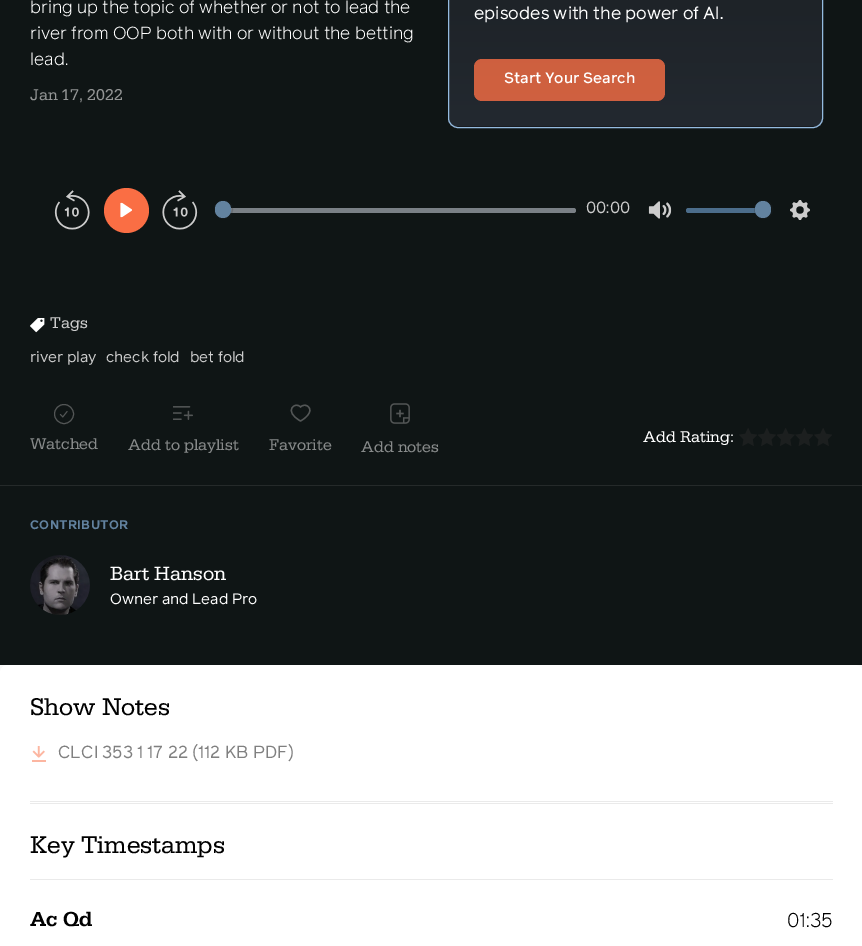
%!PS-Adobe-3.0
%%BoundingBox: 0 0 862 946
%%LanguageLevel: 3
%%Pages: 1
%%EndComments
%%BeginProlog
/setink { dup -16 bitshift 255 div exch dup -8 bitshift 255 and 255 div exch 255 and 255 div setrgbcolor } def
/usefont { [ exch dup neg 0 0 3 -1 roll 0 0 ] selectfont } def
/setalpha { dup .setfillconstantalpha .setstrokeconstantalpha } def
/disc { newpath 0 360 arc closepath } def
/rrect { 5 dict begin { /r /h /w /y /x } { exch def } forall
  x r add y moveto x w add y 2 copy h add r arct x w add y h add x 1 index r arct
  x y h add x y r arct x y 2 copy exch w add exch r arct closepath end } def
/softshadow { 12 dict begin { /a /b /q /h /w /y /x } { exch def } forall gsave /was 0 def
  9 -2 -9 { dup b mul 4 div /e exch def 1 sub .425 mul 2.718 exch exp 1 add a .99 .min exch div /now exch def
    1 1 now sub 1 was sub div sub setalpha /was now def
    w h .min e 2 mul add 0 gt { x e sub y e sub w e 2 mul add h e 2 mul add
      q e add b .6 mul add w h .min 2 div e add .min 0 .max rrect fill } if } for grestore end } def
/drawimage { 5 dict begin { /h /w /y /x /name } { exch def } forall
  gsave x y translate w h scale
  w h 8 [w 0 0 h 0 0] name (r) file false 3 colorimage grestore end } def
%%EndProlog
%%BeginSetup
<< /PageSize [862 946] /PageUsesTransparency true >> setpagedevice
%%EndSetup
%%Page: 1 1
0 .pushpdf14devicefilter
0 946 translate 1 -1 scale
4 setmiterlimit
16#0F1515 setink
0 0 862 946 rectfill
/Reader-Light 17.5 usefont
16#FFFFFF setink
[
    [(bring up the topic of whether or not to lead the) 30 13]
    [(river from OOP both with or without the betting) 30 39]
    [(lead.) 30 65]
] { aload pop moveto show } forall
/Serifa-Regular 16.25 usefont
16#939595 setink
30 100 moveto (Jan 17, 2022) show
(img1.raw) 54 190 36 40 drawimage
16#FA6E44 setink
126.5 210.5 22.5 disc fill
(img2.raw) 120 202 12 16 drawimage
(img3.raw) 162 190 36 40 drawimage
0.6 setalpha
16#C1C8D1 setink
215 208 361 5 2.5 rrect fill
0.2 setalpha
16#23282F setink
223.5 209.5 9 disc stroke
1 setalpha
215 203 16 16 8 0.5 0.15 softshadow
16#62829F setink
215 201 16 17 8 rrect fill
/Reader-Regular 16.25 usefont
16#CCCCCC setink
586 213 moveto (00:00) show
(img4.raw) 648 201 24 18 drawimage
16#4C6D8B setink
686 208 85 5 2.5 rrect fill
0.2 setalpha
16#23282F setink
763.5 209.5 9 disc stroke
1 setalpha
755 203 16 16 8 0.5 0.15 softshadow
16#62829F setink
755 201 16 17 8 rrect fill
(img5.raw) 790 200 20 20 drawimage
(img6.raw) 30 318 15 15 drawimage
/Serifa-Regular 16.25 usefont
16#CCCCCC setink
50 328 moveto (Tags) show
/Reader-Regular 15 usefont
[
    [(river play) 30 362]
    [(check fold) 106 362]
    [(bet fold) 190 362]
] { aload pop moveto show } forall
16#535656 setink
64 414 9.5 disc stroke
(img7.raw) 59 411 9 7 drawimage
/Serifa-Regular 16.25 usefont
16#878A8A setink
30 449 moveto (Watched) show
(img8.raw) 173 406 20 14 drawimage
128 450 moveto (Add to playlist) show
16#535656 setink
1.3 setlinewidth
308 406.5 moveto 306 404.5 302.5 405 300.5 407 curveto 295.5 401 282.5 411 300.5 421 curveto 304.5 419 314 411.5 308 406.5 curveto closepath stroke
16#878A8A setink
269 450 moveto (Favorite) show
(img9.raw) 390 403 20 21 drawimage
361 452 moveto (Add notes) show
16#FFFFFF setink
643 442 moveto (Add Rating:) show
(img10.raw) 739 428 18 18 drawimage
(img11.raw) 758 428 18 18 drawimage
(img12.raw) 777 428 18 18 drawimage
(img13.raw) 795 428 18 18 drawimage
(img10.raw) 814 428 18 18 drawimage
16#252A2A setink
0 485 862 1 rectfill
/Reader-Bold 12.5 usefont
16#62829F setink
30 529 moveto 0.25 0 (CONTRIBUTOR) ashow
(img14.raw) 30 555 60 60 drawimage
/Serifa-Regular 20 usefont
16#FFFFFF setink
110 580 moveto (Bart Hanson) show
/Reader-Regular 15 usefont
110 604 moveto (Owner and Lead Pro) show
16#F9F9F9 setink
0 665 862 8 rectfill
16#FFFFFF setink
0 665 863 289 8 rrect fill
/Serifa-Regular 25 usefont
16#000000 setink
30 715 moveto (Show Notes) show
(img15.raw) 32 746 14 16 drawimage
/Reader-Regular 17.5 usefont
16#808080 setink
58 758 moveto (CLCI 353 1 17 22 \(112 KB PDF\)) show
16#EAEAEA setink
30 801 803 1 rectfill
30 803 803 1 rectfill
/Serifa-Regular 25 usefont
16#000000 setink
30 853 moveto (Key Timestamps) show
16#EAEAEA setink
30 879 803 1 rectfill
/Serifa-Medium 21 usefont
16#000000 setink
30 926 moveto (Ac Qd) show
/Reader-Light 20 usefont
787 927 moveto (01:35) show
gsave
448 -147 375 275 10 rrect clip newpath
gsave 448 0 moveto 823 0 lineto 823 126 lineto 448 126 lineto closepath clip newpath
<< /ShadingType 2 /ColorSpace /DeviceRGB /Coords [635 126 635 -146] /Extend [true true] /Function << /FunctionType 2 /Domain [0 1] /C0 [0.137 0.161 0.188] /C1 [0.094 0.106 0.125] /N 1 >> >> shfill grestore
gsave 448 126 moveto 823 126 lineto 823 128 lineto 448 128 lineto closepath clip newpath
<< /ShadingType 2 /ColorSpace /DeviceRGB /Coords [635 399 635 126] /Extend [true true] /Function << /FunctionType 2 /Domain [0 1] /C0 [0.137 0.161 0.188] /C1 [0.094 0.106 0.125] /N 1 >> >> shfill grestore
grestore
16#94BBDF setink
1 setlinewidth
448.5 -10.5 374 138 9.5 rrect stroke
/Reader-Regular 17.5 usefont
16#FFFFFF setink
474 19 moveto (episodes with the power of Al.) show
0.8 setalpha
16#FA6E44 setink
474 59 191 42 8 rrect fill
/Reader-Medium 15 usefont
1 setalpha
16#FFFFFF setink
504 83 moveto (Start Your Search) show
.poppdf14devicefilter showpage
%%EOF
